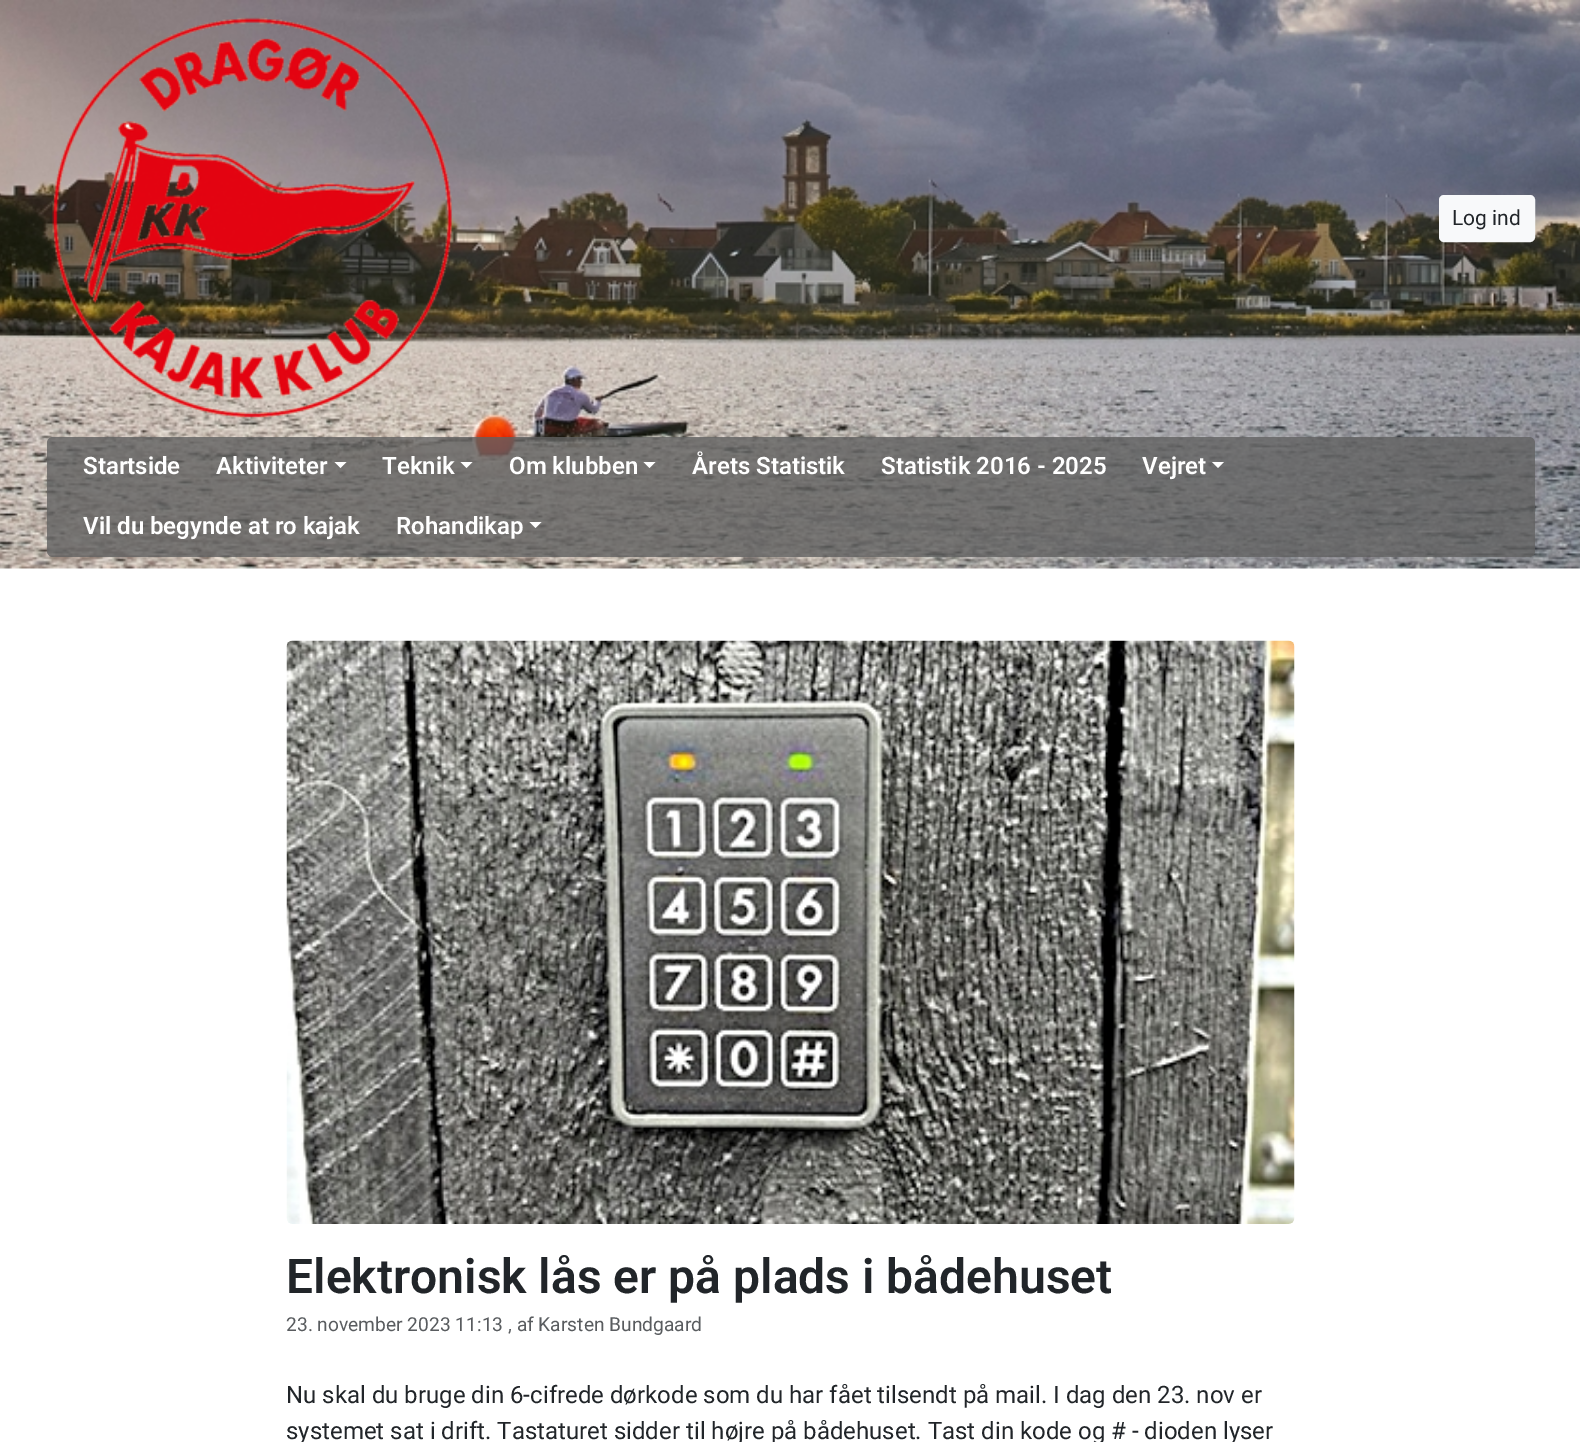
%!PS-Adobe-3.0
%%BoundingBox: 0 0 1580 1442
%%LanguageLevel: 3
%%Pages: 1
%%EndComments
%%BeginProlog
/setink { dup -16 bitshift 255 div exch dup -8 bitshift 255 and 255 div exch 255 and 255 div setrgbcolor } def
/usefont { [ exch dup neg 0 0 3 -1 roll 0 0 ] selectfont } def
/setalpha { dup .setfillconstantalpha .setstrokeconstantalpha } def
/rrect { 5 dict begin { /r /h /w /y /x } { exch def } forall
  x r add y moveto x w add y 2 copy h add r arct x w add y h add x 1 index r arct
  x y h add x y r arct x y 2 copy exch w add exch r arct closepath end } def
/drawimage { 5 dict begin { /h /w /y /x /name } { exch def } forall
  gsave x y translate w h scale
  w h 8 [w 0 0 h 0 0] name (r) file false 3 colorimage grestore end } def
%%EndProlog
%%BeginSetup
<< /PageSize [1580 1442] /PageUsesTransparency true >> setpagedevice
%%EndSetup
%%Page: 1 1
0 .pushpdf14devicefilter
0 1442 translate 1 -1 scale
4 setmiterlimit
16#FFFFFF setink
0 0 1580 1442 rectfill
(img1.raw) 0 0 1580 569 drawimage
(img2.raw) 52 17 400 401 drawimage
16#F8F9FA setink
1440 196 94 45 4 rrect gsave fill grestore
2 setlinewidth
stroke
/Roboto-Regular 21 usefont
16#212529 setink
1452 225 moveto (Log ind) show
0.8 setalpha
16#616161 setink
47 437 1488 120 6 rrect fill
/Roboto-SemiBold 24 usefont
1 setalpha
16#FFFFFF setink
83 474 moveto (Startside) show
216 474 moveto (Aktiviteter) show
334.5 462 moveto 346.5 462 lineto 340.5 468 lineto closepath fill
382 474 moveto (Teknik) show
460.5 462 moveto 472.5 462 lineto 466.5 468 lineto closepath fill
509 474 moveto (Om klubben) show
643.5 462 moveto 655.5 462 lineto 649.5 468 lineto closepath fill
[
    [(Årets Statistik) 692 474]
    [(Statistik 2016 - 2025) 881 474]
    [(Vejret) 1142 474]
] { aload pop moveto show } forall
1212 462 moveto 1224 462 lineto 1218 468 lineto closepath fill
83 534 moveto (Vil du begynde at ro kajak) show
396 534 moveto (Rohandikap) show
529.5 522 moveto 541.5 522 lineto 535.5 528 lineto closepath fill
(img3.raw) 286 640 1009 584 drawimage
/Roboto-SemiBold 48 usefont
16#212529 setink
286 1293 moveto (Elektronisk lås er på plads i bådehuset) show
/Roboto-Regular 19.2 usefont
16#595C5F setink
286 1331 moveto (23. november 2023 11:13 , af Karsten Bundgaard) show
/Roboto-Regular 24 usefont
16#212529 setink
286 1403 moveto (Nu skal du bruge din 6-cifrede dørkode som du har fået tilsendt på mail. I dag den 23. nov er) show
286 1439 moveto (systemet sat i drift. Tastaturet sidder til højre på bådehuset. Tast din kode og # - dioden lyser) show
.poppdf14devicefilter showpage
%%EOF
